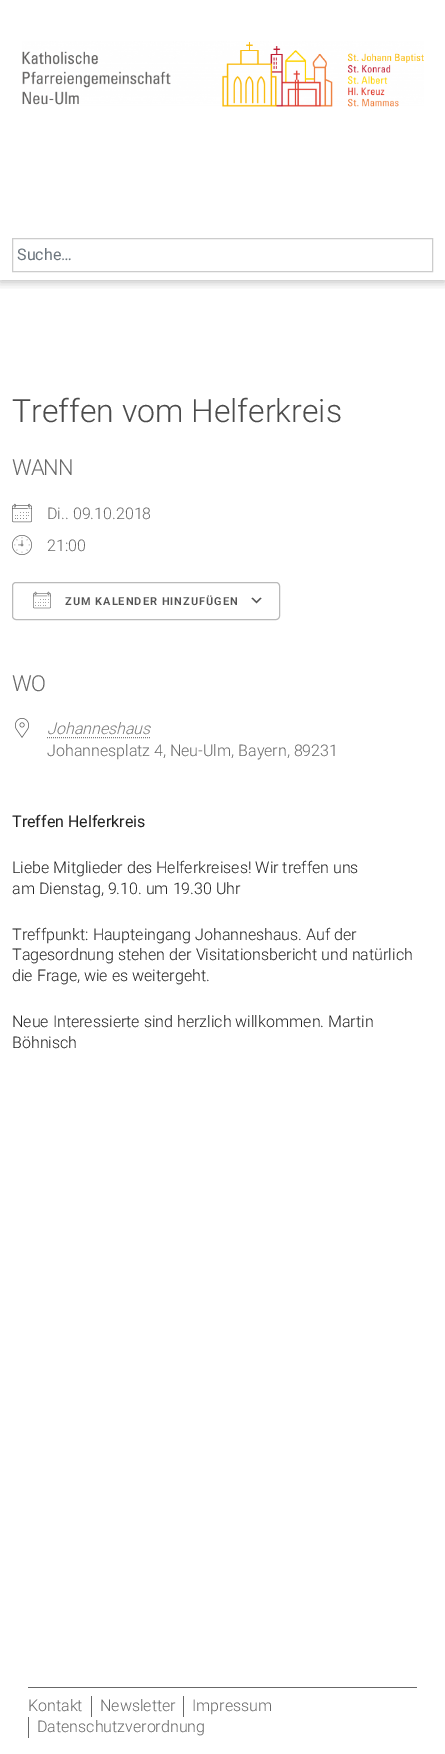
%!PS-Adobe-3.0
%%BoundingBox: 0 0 445 1754
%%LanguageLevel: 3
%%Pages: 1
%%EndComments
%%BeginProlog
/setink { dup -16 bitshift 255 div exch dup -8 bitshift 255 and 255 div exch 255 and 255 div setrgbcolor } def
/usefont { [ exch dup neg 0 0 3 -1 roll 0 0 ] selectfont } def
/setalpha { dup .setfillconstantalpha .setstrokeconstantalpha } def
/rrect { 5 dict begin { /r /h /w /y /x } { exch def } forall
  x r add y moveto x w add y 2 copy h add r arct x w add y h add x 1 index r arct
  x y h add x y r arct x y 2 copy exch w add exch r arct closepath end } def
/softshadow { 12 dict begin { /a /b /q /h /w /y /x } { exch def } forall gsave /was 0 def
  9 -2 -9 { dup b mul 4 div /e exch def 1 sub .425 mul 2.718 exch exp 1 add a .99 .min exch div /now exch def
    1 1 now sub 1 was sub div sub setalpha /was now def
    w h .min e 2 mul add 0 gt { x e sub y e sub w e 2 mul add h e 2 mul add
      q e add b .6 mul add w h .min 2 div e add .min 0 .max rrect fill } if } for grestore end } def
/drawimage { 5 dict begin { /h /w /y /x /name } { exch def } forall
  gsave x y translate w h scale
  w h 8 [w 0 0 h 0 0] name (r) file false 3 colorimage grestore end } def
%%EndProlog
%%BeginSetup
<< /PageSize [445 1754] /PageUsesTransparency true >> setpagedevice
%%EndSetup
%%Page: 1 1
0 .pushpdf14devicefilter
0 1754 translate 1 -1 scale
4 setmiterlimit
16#FFFFFF setink
0 0 445 1754 rectfill
gsave
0 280 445 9 rectclip
16#000000 setink
0 2 445 280 0 5 0.25 softshadow
grestore
(img1.raw) 22 41 402 66 drawimage
16#CCCCCC setink
12.5 238.5 420 33 rectstroke
/Roboto-Regular 16 usefont
16#6C757D setink
17 260 moveto (Suche…) show
/Roboto-Light 32 usefont
16#4B4B4B setink
12 422 moveto (Treffen vom Helferkreis) show
/Roboto-Light 22 usefont
16#686868 setink
12 475 moveto -1 0 (WANN) ashow
(img2.raw) 12 503 20 20 drawimage
/Roboto-Light 16 usefont
47 519 moveto (Di.. 09.10.2018) show
(img3.raw) 12 535 20 20 drawimage
47 551 moveto (21:00) show
(img4.raw) 251 597 11 7 drawimage
16#BABABA setink
12.5 582.5 267 37 3.5 rrect stroke
(img5.raw) 33 591 18 18 drawimage
/Roboto-SemiBold 11 usefont
16#545454 setink
65 605 moveto 1 0 (ZUM KALENDER HINZUFÜGEN) ashow
/Roboto-Light 22 usefont
16#686868 setink
12 691 moveto -1 0 (WO) ashow
(img6.raw) 15 718 14 20 drawimage
/Roboto-LightItalic 16 usefont
16#787878 setink
47 734 moveto (Johanneshaus) show
[1 1] 0 setdash
47 737.5 moveto 150.5 737.5 lineto stroke
/Roboto-Light 16 usefont
16#686868 setink
47 756 moveto (Johannesplatz 4, Neu-Ulm, Bayern, 89231) show
/Roboto-Regular 16 usefont
16#212121 setink
12 827 moveto (Treffen Helferkreis) show
/Roboto-Light 16 usefont
[
    [(Liebe Mitglieder des Helferkreises! Wir treffen uns) 12 873]
    [(am Dienstag, 9.10. um 19.30 Uhr) 12 894]
    [(Treffpunkt: Haupteingang Johanneshaus. Auf der) 12 940]
    [(Tagesordnung stehen der Visitationsbericht und natürlich) 12 960]
    [(die Frage, wie es weitergeht.) 12 981]
    [(Neue Interessierte sind herzlich willkommen. Martin) 12 1027]
    [(Böhnisch) 12 1048]
] { aload pop moveto show } forall
16#686868 setink
28 1687 389 1 rectfill
28 1711 moveto (Kontakt) show
91 1696 1 21 rectfill
100 1711 moveto (Newsletter) show
183 1696 1 21 rectfill
192 1711 moveto (Impressum) show
28 1717 1 21 rectfill
37 1732 moveto (Datenschutzverordnung) show
.poppdf14devicefilter showpage
%%EOF
